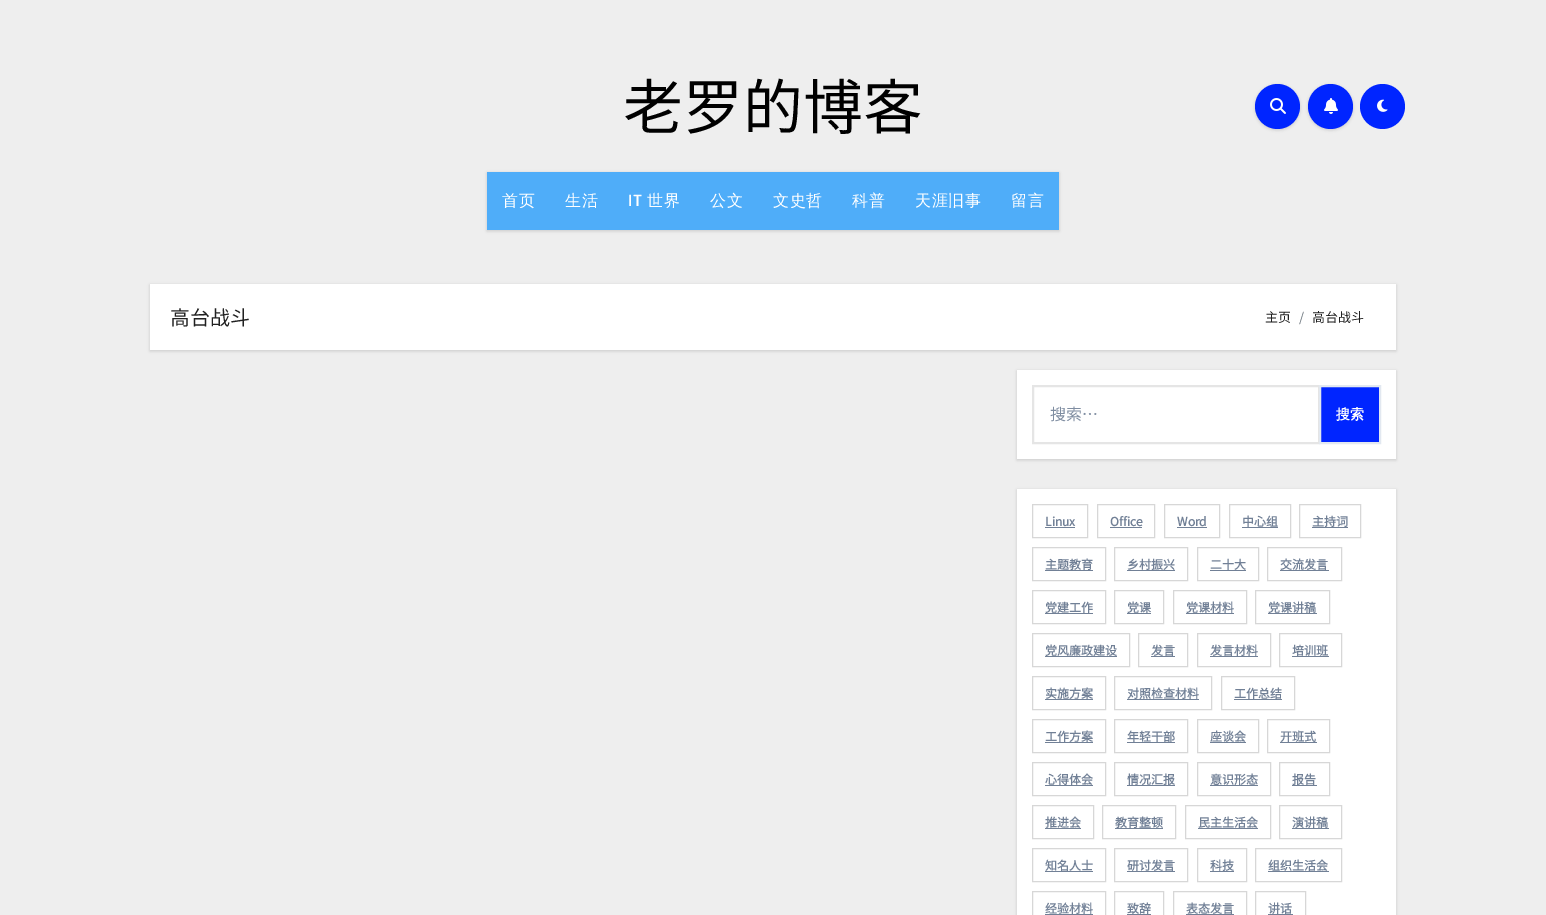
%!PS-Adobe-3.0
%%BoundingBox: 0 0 1546 915
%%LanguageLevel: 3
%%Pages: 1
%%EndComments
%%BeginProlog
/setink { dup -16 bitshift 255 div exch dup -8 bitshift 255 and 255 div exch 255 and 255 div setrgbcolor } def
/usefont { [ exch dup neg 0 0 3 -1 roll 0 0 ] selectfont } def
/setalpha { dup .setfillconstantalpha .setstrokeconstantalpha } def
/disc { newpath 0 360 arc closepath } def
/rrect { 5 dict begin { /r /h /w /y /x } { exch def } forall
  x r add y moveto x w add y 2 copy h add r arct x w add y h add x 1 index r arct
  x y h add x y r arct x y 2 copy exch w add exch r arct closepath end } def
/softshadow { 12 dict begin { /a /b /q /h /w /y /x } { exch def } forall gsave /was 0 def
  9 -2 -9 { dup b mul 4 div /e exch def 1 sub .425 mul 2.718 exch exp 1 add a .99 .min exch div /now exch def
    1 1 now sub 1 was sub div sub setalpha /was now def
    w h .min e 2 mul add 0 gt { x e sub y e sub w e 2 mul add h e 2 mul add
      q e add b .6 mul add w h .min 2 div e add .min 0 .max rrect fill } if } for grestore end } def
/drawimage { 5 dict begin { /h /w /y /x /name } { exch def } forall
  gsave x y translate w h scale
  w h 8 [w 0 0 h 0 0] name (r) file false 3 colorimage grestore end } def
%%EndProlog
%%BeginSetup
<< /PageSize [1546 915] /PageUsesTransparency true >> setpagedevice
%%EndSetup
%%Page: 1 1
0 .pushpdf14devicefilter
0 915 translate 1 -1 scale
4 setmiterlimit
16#EEEEEE setink
0 0 1546 915 rectfill
/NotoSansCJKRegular-Regular 60 usefont
16#000000 setink
623 129 moveto (老罗的博客) show
1255 85 45 45 22.5 1.5 0.15 softshadow
16#0025FF setink
1277.5 106.5 22.5 disc fill
(img1.raw) 1270 98 16 16 drawimage
16#000000 setink
1308 85 45 45 22.5 1.5 0.15 softshadow
16#0025FF setink
1330.5 106.5 22.5 disc fill
(img2.raw) 1324 98 14 16 drawimage
1382.5 106.5 22.5 disc fill
(img3.raw) 1377 99 11 13 drawimage
16#000000 setink
487 173 572 58 0 1.5 0.15 softshadow
16#4FADF9 setink
487 172 572 58 rectfill
/WenQuanYiZenHei-Medium 16 usefont
16#FFFFFF setink
502 206 moveto 0.5 0 (首页) ashow
565 206 moveto 0.5 0 (生活) ashow
/Poppins-Medium 16 usefont
628 206 moveto 0.5 0 (IT) ashow
/WenQuanYiZenHei-Medium 16 usefont
647 206 moveto 0.5 0 (世界) ashow
710 206 moveto 0.5 0 (公文) ashow
773 206 moveto 0.5 0 (文史哲) ashow
852 206 moveto 0.5 0 (科普) ashow
915 206 moveto 0.5 0 (天涯旧事) ashow
1011 206 moveto 0.5 0 (留言) ashow
16#000000 setink
150 285 1246 66 0 1.5 0.15 softshadow
16#FFFFFF setink
150 284 1246 66 rectfill
/NotoSansCJKRegular-Regular 20 usefont
16#212121 setink
170 325 moveto (高台战斗) show
/NotoSansCJKRegular-Regular 13 usefont
1265 322 moveto (主页) show
16#6C757D setink
1299 322 moveto (/) show
16#212121 setink
1312 322 moveto (高台战斗) show
16#000000 setink
1017 371 379 89 0 1.5 0.15 softshadow
16#FFFFFF setink
1017 370 379 89 rectfill
16#E5E5E5 setink
2 setlinewidth
1033 386 286 57 rectstroke
/NotoSansCJKRegular-Regular 16 usefont
16#7F8DA1 setink
1050 420 moveto (搜索…) show
16#0025FF setink
1320 386 moveto 1380 386 lineto 1380 443 lineto 1320 443 lineto closepath gsave fill grestore
16#E2E8F0 setink
stroke
/WenQuanYiZenHei-Bold 14 usefont
16#FFFFFF setink
1336 419 moveto (搜索) show
16#000000 setink
1017 490 379 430 0 1.5 0.15 softshadow
16#FFFFFF setink
1017 489 379 426 rectfill
16#D7D7D7 setink
1 setlinewidth
1032.5 504.5 55 33 rectstroke
/NotoSansCJKRegular-Bold 12 usefont
16#718096 setink
1045 526 moveto (Linux) show
1045 527 30 1 rectfill
16#D7D7D7 setink
1097.5 504.5 57 33 rectstroke
16#718096 setink
1110 526 moveto (Office) show
1110 527 32 1 rectfill
16#D7D7D7 setink
1164.5 504.5 55 33 rectstroke
16#718096 setink
1177 526 moveto (Word) show
1177 527 30 1 rectfill
16#D7D7D7 setink
1229.5 504.5 61 33 rectstroke
16#718096 setink
1242 526 moveto (中心组) show
1242 527 36 1 rectfill
16#D7D7D7 setink
1299.5 504.5 61 33 rectstroke
16#718096 setink
1312 526 moveto (主持词) show
1312 527 36 1 rectfill
16#D7D7D7 setink
1032.5 547.5 73 33 rectstroke
16#718096 setink
1045 569 moveto (主题教育) show
1045 570 48 1 rectfill
16#D7D7D7 setink
1114.5 547.5 73 33 rectstroke
16#718096 setink
1127 569 moveto (乡村振兴) show
1127 570 48 1 rectfill
16#D7D7D7 setink
1197.5 547.5 61 33 rectstroke
16#718096 setink
1210 569 moveto (二十大) show
1210 570 36 1 rectfill
16#D7D7D7 setink
1267.5 547.5 74 33 rectstroke
16#718096 setink
1280 569 moveto (交流发言) show
1280 570 49 1 rectfill
16#D7D7D7 setink
1032.5 590.5 73 33 rectstroke
16#718096 setink
1045 612 moveto (党建工作) show
1045 613 48 1 rectfill
16#D7D7D7 setink
1114.5 590.5 49 33 rectstroke
16#718096 setink
1127 612 moveto (党课) show
1127 613 24 1 rectfill
16#D7D7D7 setink
1173.5 590.5 73 33 rectstroke
16#718096 setink
1186 612 moveto (党课材料) show
1186 613 48 1 rectfill
16#D7D7D7 setink
1255.5 590.5 74 33 rectstroke
16#718096 setink
1268 612 moveto (党课讲稿) show
1268 613 49 1 rectfill
16#D7D7D7 setink
1032.5 633.5 97 33 rectstroke
16#718096 setink
1045 655 moveto (党风廉政建设) show
1045 656 72 1 rectfill
16#D7D7D7 setink
1138.5 633.5 49 33 rectstroke
16#718096 setink
1151 655 moveto (发言) show
1151 656 24 1 rectfill
16#D7D7D7 setink
1197.5 633.5 73 33 rectstroke
16#718096 setink
1210 655 moveto (发言材料) show
1210 656 48 1 rectfill
16#D7D7D7 setink
1279.5 633.5 62 33 rectstroke
16#718096 setink
1292 655 moveto (培训班) show
1292 656 37 1 rectfill
16#D7D7D7 setink
1032.5 676.5 73 33 rectstroke
16#718096 setink
1045 698 moveto (实施方案) show
1045 699 48 1 rectfill
16#D7D7D7 setink
1114.5 676.5 97 33 rectstroke
16#718096 setink
1127 698 moveto (对照检查材料) show
1127 699 72 1 rectfill
16#D7D7D7 setink
1221.5 676.5 73 33 rectstroke
16#718096 setink
1234 698 moveto (工作总结) show
1234 699 48 1 rectfill
16#D7D7D7 setink
1032.5 719.5 73 33 rectstroke
16#718096 setink
1045 741 moveto (工作方案) show
1045 742 48 1 rectfill
16#D7D7D7 setink
1114.5 719.5 73 33 rectstroke
16#718096 setink
1127 741 moveto (年轻干部) show
1127 742 48 1 rectfill
16#D7D7D7 setink
1197.5 719.5 61 33 rectstroke
16#718096 setink
1210 741 moveto (座谈会) show
1210 742 36 1 rectfill
16#D7D7D7 setink
1267.5 719.5 62 33 rectstroke
16#718096 setink
1280 741 moveto (开班式) show
1280 742 37 1 rectfill
16#D7D7D7 setink
1032.5 762.5 73 33 rectstroke
16#718096 setink
1045 784 moveto (心得体会) show
1045 785 48 1 rectfill
16#D7D7D7 setink
1114.5 762.5 73 33 rectstroke
16#718096 setink
1127 784 moveto (情况汇报) show
1127 785 48 1 rectfill
16#D7D7D7 setink
1197.5 762.5 73 33 rectstroke
16#718096 setink
1210 784 moveto (意识形态) show
1210 785 48 1 rectfill
16#D7D7D7 setink
1279.5 762.5 50 33 rectstroke
16#718096 setink
1292 784 moveto (报告) show
1292 785 25 1 rectfill
16#D7D7D7 setink
1032.5 805.5 61 33 rectstroke
16#718096 setink
1045 827 moveto (推进会) show
1045 828 36 1 rectfill
16#D7D7D7 setink
1102.5 805.5 73 33 rectstroke
16#718096 setink
1115 827 moveto (教育整顿) show
1115 828 48 1 rectfill
16#D7D7D7 setink
1185.5 805.5 85 33 rectstroke
16#718096 setink
1198 827 moveto (民主生活会) show
1198 828 60 1 rectfill
16#D7D7D7 setink
1279.5 805.5 62 33 rectstroke
16#718096 setink
1292 827 moveto (演讲稿) show
1292 828 37 1 rectfill
16#D7D7D7 setink
1032.5 848.5 73 33 rectstroke
16#718096 setink
1045 870 moveto (知名人士) show
1045 871 48 1 rectfill
16#D7D7D7 setink
1114.5 848.5 73 33 rectstroke
16#718096 setink
1127 870 moveto (研讨发言) show
1127 871 48 1 rectfill
16#D7D7D7 setink
1197.5 848.5 49 33 rectstroke
16#718096 setink
1210 870 moveto (科技) show
1210 871 24 1 rectfill
16#D7D7D7 setink
1255.5 848.5 86 33 rectstroke
16#718096 setink
1268 870 moveto (组织生活会) show
1268 871 61 1 rectfill
16#D7D7D7 setink
1032.5 891.5 73 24 rectstroke
16#718096 setink
1045 913 moveto (经验材料) show
1045 914 48 1 rectfill
16#D7D7D7 setink
1114.5 891.5 49 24 rectstroke
16#718096 setink
1127 913 moveto (致辞) show
1127 914 24 1 rectfill
16#D7D7D7 setink
1173.5 891.5 73 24 rectstroke
16#718096 setink
1186 913 moveto (表态发言) show
1186 914 48 1 rectfill
16#D7D7D7 setink
1255.5 891.5 50 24 rectstroke
16#718096 setink
1268 913 moveto (讲话) show
1268 914 25 1 rectfill
.poppdf14devicefilter showpage
%%EOF
